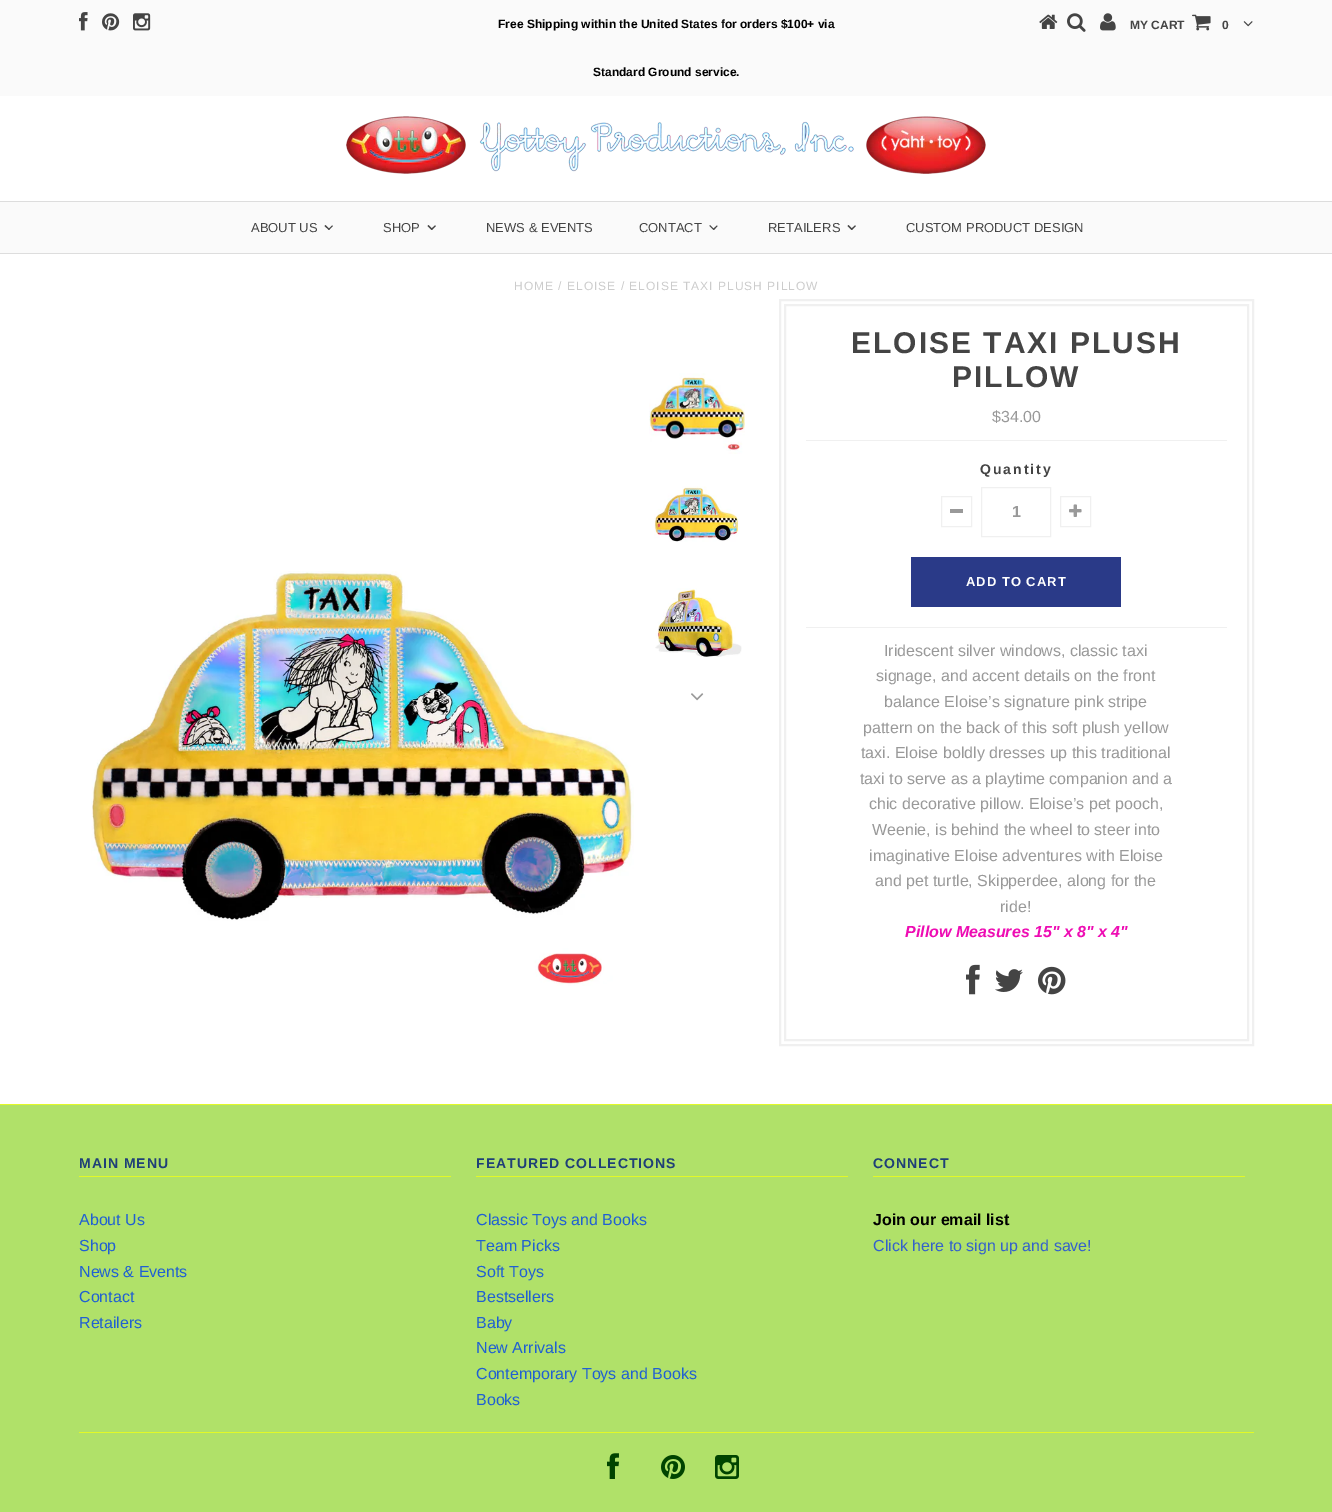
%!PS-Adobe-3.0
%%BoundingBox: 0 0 1332 1512
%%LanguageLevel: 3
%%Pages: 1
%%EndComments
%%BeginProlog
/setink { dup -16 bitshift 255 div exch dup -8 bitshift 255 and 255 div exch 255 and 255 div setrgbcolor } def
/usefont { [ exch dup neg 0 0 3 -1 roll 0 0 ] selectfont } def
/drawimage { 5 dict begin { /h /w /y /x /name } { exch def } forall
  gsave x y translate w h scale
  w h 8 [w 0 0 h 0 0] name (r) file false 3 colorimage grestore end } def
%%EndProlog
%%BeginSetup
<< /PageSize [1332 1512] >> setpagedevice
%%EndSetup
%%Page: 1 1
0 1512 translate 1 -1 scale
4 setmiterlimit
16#FFFFFF setink
0 0 1332 1512 rectfill
16#FAFAFA setink
0 0 1332 96 rectfill
(img1.raw) 79 12 9 19 drawimage
(img2.raw) 102 13 18 18 drawimage
(img3.raw) 133 13 18 18 drawimage
/LiberationSans-Bold 12 usefont
16#000000 setink
498 28 moveto (Free Shipping within the United States for orders $100+ via) show
593 76 moveto (Standard Ground service.) show
(img4.raw) 1039 14 19 15 drawimage
(img5.raw) 1067 13 19 19 drawimage
(img6.raw) 1100 13 16 18 drawimage
16#444444 setink
1130 29 moveto (MY CART) show
(img7.raw) 1192 14 19 17 drawimage
1222 29 moveto (0) show
(img8.raw) 1243 21 10 6 drawimage
(img9.raw) 346 116 640 58 drawimage
[
    [0 202 1332 51 16#FAFAFA]
    [0 201 1332 1 16#DDDDDD]
    [0 253 1332 1 16#DDDDDD]
] { aload pop setink rectfill } forall
/LiberationSans-Regular 13 usefont
16#444444 setink
251 232 moveto (ABOUT US) show
16#454545 setink
332 225.5 moveto 333 226 lineto 329 230 lineto 328.5 229 lineto closepath fill
325.5 225 moveto 329.5 229 lineto 329 230 lineto 324.5 226 lineto closepath fill
16#444444 setink
383 232 moveto (SHOP) show
16#454545 setink
435 225.5 moveto 436 226 lineto 432 230 lineto 431 229 lineto closepath fill
428.5 225 moveto 432.5 229 lineto 431.5 230 lineto 427.5 226 lineto closepath fill
16#444444 setink
486 232 moveto (NEWS & EVENTS) show
639 232 moveto (CONTACT) show
16#454545 setink
717 225.5 moveto 717.5 226 lineto 714 230 lineto 713 229 lineto closepath fill
710 225 moveto 714 229 lineto 713.5 230 lineto 709.5 226 lineto closepath fill
16#444444 setink
768 232 moveto (RETAILERS) show
16#454545 setink
855 225.5 moveto 856 226 lineto 852 230 lineto 851 229 lineto closepath fill
848.5 225 moveto 852.5 229 lineto 851.5 230 lineto 847.5 226 lineto closepath fill
16#444444 setink
906 232 moveto (CUSTOM PRODUCT DESIGN) show
/LiberationSans-Regular 12 usefont
16#CCCCCC setink
514 290 moveto 1 0 (HOME / ELOISE / ELOISE TAXI PLUSH PILLOW) ashow
(img10.raw) 649 373 96 81 drawimage
(img11.raw) 654 486 86 56 drawimage
(img12.raw) 655 588 87 69 drawimage
(img13.raw) 691 693 13 8 drawimage
(img14.raw) 91 571 543 415 drawimage
16#F0F0F0 setink
2 setlinewidth
780 300 473 745 rectstroke
785 305 463 735 rectstroke
/LiberationSans-Bold 30 usefont
16#444444 setink
851 353 moveto 2 0 (ELOISE TAXI PLUSH) ashow
952 387 moveto 2 0 (PILLOW) ashow
/LiberationSans-Regular 16 usefont
16#999999 setink
992 422 moveto ($34.00) show
16#F0F0F0 setink
806 440 421 1 rectfill
806 627 421 1 rectfill
/LiberationSans-Bold 14 usefont
16#444444 setink
980 474 moveto 2 0 (Quantity) ashow
16#F0F0F0 setink
1 setlinewidth
941.5 496.5 30 30 rectstroke
16#999999 setink
950 509 13 4 rectfill
16#F0F0F0 setink
981.5 487.5 69 49 rectstroke
/LiberationSans-Bold 16 usefont
16#999999 setink
1012 517 moveto (1) show
16#F0F0F0 setink
1060.5 496.5 30 30 rectstroke
(img15.raw) 1069 504 13 13 drawimage
16#2A3A88 setink
911 557 210 50 rectfill
/LiberationSans-Bold 13 usefont
16#FFFFFF setink
966 586 moveto 1 0 (ADD TO CART) ashow
/LiberationSans-Regular 16 usefont
16#999999 setink
[
    [(Iridescent silver windows, classic taxi) 884 656]
    [(signage, and accent details on the front) 876 681]
    [(balance Eloise’s signature pink stripe) 884 707]
    [(pattern on the back of this soft plush yellow) 863 733]
    [(taxi. Eloise boldly dresses up this traditional) 861 758]
    [(taxi to serve as a playtime companion and a) 860 784]
    [(chic decorative pillow. Eloise’s pet pooch,) 869 809]
    [(Weenie, is behind the wheel to steer into) 872 835]
    [(imaginative Eloise adventures with Eloise) 869 861]
    [(and pet turtle, Skipperdee, along for the) 875 886]
    [(ride!) 1000 912]
] { aload pop moveto show } forall
/LiberationSans-BoldItalic 16 usefont
16#EE0CB3 setink
905 937 moveto (Pillow Measures 15" x 8" x 4") show
(img16.raw) 966 964 14 31 drawimage
(img17.raw) 995 969 28 23 drawimage
(img18.raw) 1038 966 28 29 drawimage
[
    [0 1105 1332 407 16#B0E169]
    [0 1104 1332 1 16#E2F927]
    [79 1176 372 1 16#E2F927]
] { aload pop setink rectfill } forall
/LiberationSans-Bold 14 usefont
16#1F3F77 setink
79 1168 moveto 1 0 (MAIN MENU) ashow
/LiberationSans-Regular 16 usefont
16#2060D3 setink
[
    [(About Us) 79 1225]
    [(Shop) 79 1251]
    [(News & Events) 79 1277]
    [(Contact) 79 1302]
    [(Retailers) 79 1328]
] { aload pop moveto show } forall
16#E2F927 setink
476 1176 372 1 rectfill
/LiberationSans-Bold 14 usefont
16#1F3F77 setink
476 1168 moveto 1 0 (FEATURED COLLECTIONS) ashow
/LiberationSans-Regular 16 usefont
16#2060D3 setink
[
    [(Classic Toys and Books) 476 1225]
    [(Team Picks) 476 1251]
    [(Soft Toys) 476 1277]
    [(Bestsellers) 476 1302]
    [(Baby) 476 1328]
    [(New Arrivals) 476 1353]
    [(Contemporary Toys and Books) 476 1379]
    [(Books) 476 1405]
] { aload pop moveto show } forall
16#E2F927 setink
873 1176 372 1 rectfill
/LiberationSans-Bold 14 usefont
16#1F3F77 setink
873 1168 moveto 1 0 (CONNECT) ashow
/LiberationSans-Bold 16 usefont
16#000000 setink
873 1225 moveto (Join our email list) show
/LiberationSans-Regular 16 usefont
16#3461CC setink
873 1251 moveto (Click here to sign up and save!) show
16#E2F927 setink
79 1432 1175 1 rectfill
(img19.raw) 607 1453 12 26 drawimage
(img20.raw) 661 1455 24 24 drawimage
(img21.raw) 715 1455 24 24 drawimage
showpage
%%EOF
